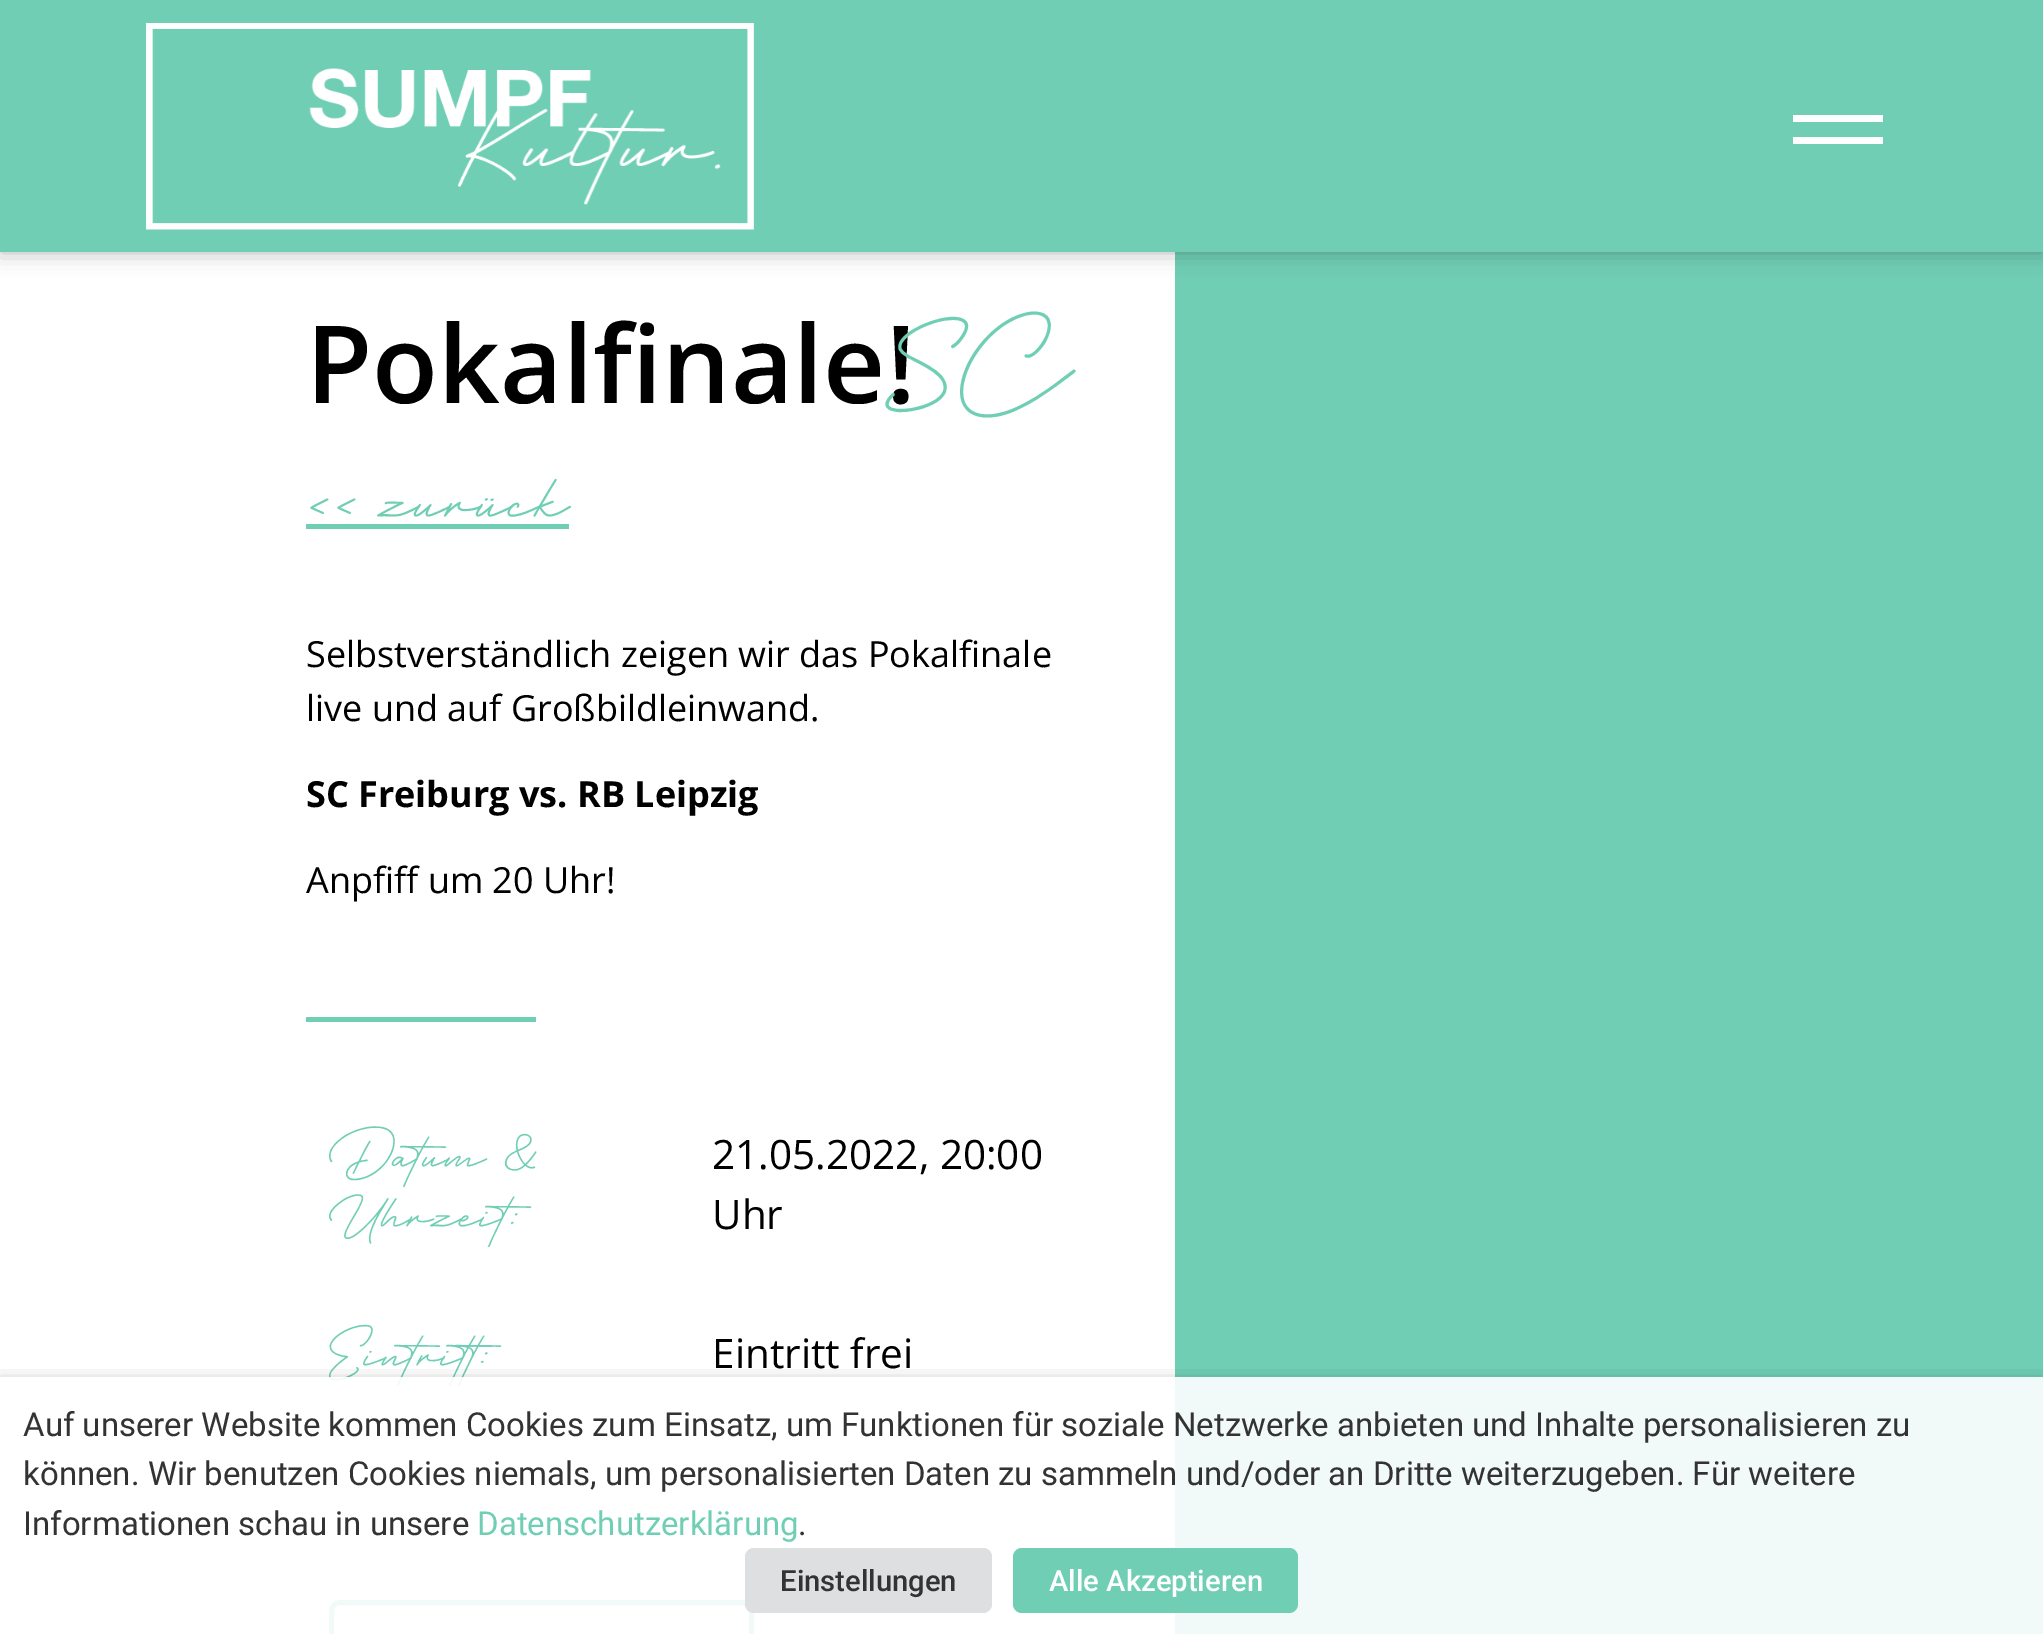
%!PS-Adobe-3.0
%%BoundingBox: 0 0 2043 1634
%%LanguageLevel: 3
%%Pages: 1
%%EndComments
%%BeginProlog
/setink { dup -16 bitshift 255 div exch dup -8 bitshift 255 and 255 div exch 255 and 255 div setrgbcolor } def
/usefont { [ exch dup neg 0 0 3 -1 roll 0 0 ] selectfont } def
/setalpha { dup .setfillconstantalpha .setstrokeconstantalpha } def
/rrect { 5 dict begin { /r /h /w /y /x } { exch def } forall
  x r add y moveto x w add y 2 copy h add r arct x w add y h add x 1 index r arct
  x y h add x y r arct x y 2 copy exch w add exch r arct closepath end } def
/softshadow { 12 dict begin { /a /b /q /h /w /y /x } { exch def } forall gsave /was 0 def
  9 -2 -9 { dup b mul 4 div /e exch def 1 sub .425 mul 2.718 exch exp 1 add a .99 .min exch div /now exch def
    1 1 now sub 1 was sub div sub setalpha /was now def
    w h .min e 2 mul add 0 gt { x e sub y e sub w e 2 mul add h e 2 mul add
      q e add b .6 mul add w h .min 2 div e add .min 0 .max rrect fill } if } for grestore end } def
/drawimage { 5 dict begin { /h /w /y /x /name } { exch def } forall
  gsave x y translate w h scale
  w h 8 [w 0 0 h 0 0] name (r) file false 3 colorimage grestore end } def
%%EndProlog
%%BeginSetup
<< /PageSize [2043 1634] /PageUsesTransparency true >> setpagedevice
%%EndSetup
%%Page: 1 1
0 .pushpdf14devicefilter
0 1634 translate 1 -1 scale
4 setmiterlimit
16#FFFFFF setink
0 0 2043 1634 rectfill
16#70CEB4 setink
1175 252 868 1382 rectfill
16#000000 setink
0 0 2043 252 0 11 0.3 softshadow
16#70CEB4 setink
0 0 2043 252 rectfill
(img1.raw) 146 23 608 207 drawimage
16#FFFFFF setink
1793 115 90 7 rectfill
1793 137 90 7 rectfill
/OpenSans-SemiBold 108 usefont
16#000000 setink
306 403 moveto (Pokalfinale!) show
/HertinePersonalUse-Regular 81 usefont
16#70CEB4 setink
895 391 moveto (SC) show
/HertinePersonalUse-Regular 54 usefont
306 520 moveto (<< zurück) show
306 524 263 5 rectfill
/OpenSans-Regular 36 usefont
16#000000 setink
306 667 moveto (Selbstverständlich zeigen wir das Pokalfinale) show
306 721 moveto (live und auf Großbildleinwand.) show
/OpenSans-Bold 36 usefont
306 807 moveto (SC Freiburg vs. RB Leipzig) show
/OpenSans-Regular 36 usefont
306 893 moveto (Anpfiff um 20 Uhr!) show
16#70CEB4 setink
306 1017 230 5 rectfill
/HertinePersonalUse-Regular 40.5 usefont
329 1169 moveto (Datum &) show
329 1229 moveto (Uhrzeit:) show
/OpenSans-Regular 40.5 usefont
16#000000 setink
712 1169 moveto (21.05.2022, 20:00) show
712 1229 moveto (Uhr) show
/HertinePersonalUse-Regular 40.5 usefont
16#70CEB4 setink
329 1368 moveto (Eintritt:) show
/OpenSans-Regular 40.5 usefont
16#000000 setink
712 1368 moveto (Eintritt frei) show
16#70CEB4 setink
5 setlinewidth
331.5 1602.5 420 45 8.5 rrect stroke
gsave
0 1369 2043 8 rectclip
16#000000 setink
0 1388 2043 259 0 11 0.5 softshadow
grestore
0.9 setalpha
16#FFFFFF setink
329 1377 1714 257 rectfill
/Roboto-Regular 33 usefont
1 setalpha
16#333333 setink
[
    [(Auf unserer Website kommen Cookies zum Einsatz, um Funktionen für soziale Netzwerke anbieten und Inhalte personalisieren zu) 23 1436]
    [(können. Wir benutzen Cookies niemals, um personalisierten Daten zu sammeln und/oder an Dritte weiterzugeben. Für weitere) 23 1485]
    [(Informationen schau in unsere) 23 1535]
] { aload pop moveto show } forall
16#70CEB4 setink
477 1535 moveto (Datenschutzerklärung) show
16#333333 setink
798 1535 moveto (.) show
16#DEDFE0 setink
745 1548 247 65 9 rrect fill
/Roboto-Medium 29.25 usefont
16#333333 setink
780 1591 moveto (Einstellungen) show
16#70CEB4 setink
1013 1548 285 65 9 rrect fill
16#FFFFFF setink
1049 1591 moveto (Alle Akzeptieren) show
.poppdf14devicefilter showpage
%%EOF
